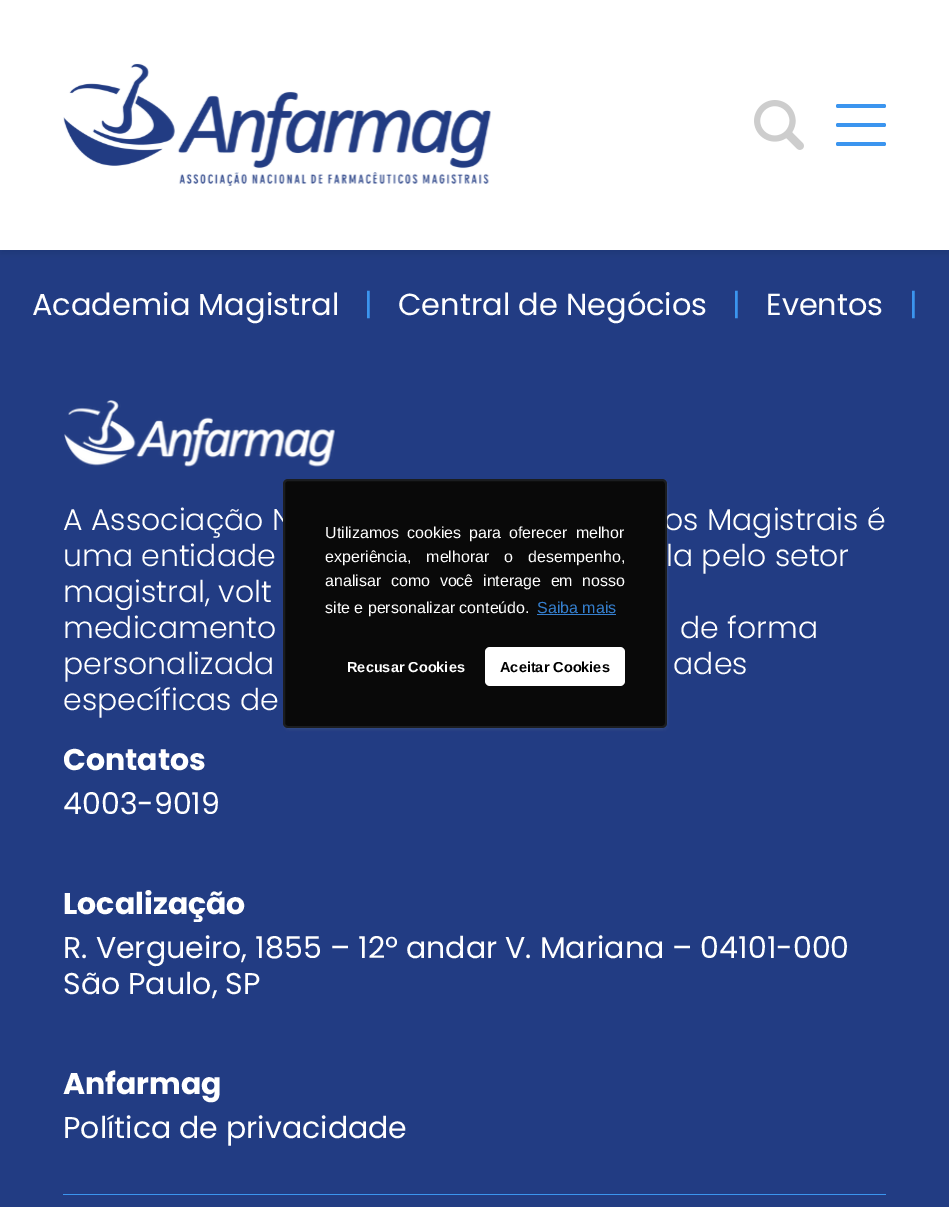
%!PS-Adobe-3.0
%%BoundingBox: 0 0 949 1207
%%LanguageLevel: 3
%%Pages: 1
%%EndComments
%%BeginProlog
/setink { dup -16 bitshift 255 div exch dup -8 bitshift 255 and 255 div exch 255 and 255 div setrgbcolor } def
/usefont { [ exch dup neg 0 0 3 -1 roll 0 0 ] selectfont } def
/setalpha { dup .setfillconstantalpha .setstrokeconstantalpha } def
/rrect { 5 dict begin { /r /h /w /y /x } { exch def } forall
  x r add y moveto x w add y 2 copy h add r arct x w add y h add x 1 index r arct
  x y h add x y r arct x y 2 copy exch w add exch r arct closepath end } def
/softshadow { 12 dict begin { /a /b /q /h /w /y /x } { exch def } forall gsave /was 0 def
  9 -2 -9 { dup b mul 4 div /e exch def 1 sub .425 mul 2.718 exch exp 1 add a .99 .min exch div /now exch def
    1 1 now sub 1 was sub div sub setalpha /was now def
    w h .min e 2 mul add 0 gt { x e sub y e sub w e 2 mul add h e 2 mul add
      q e add b .6 mul add w h .min 2 div e add .min 0 .max rrect fill } if } for grestore end } def
/drawimage { 5 dict begin { /h /w /y /x /name } { exch def } forall
  gsave x y translate w h scale
  w h 8 [w 0 0 h 0 0] name (r) file false 3 colorimage grestore end } def
%%EndProlog
%%BeginSetup
<< /PageSize [949 1207] /PageUsesTransparency true >> setpagedevice
%%EndSetup
%%Page: 1 1
0 .pushpdf14devicefilter
0 1207 translate 1 -1 scale
4 setmiterlimit
16#223C83 setink
0 0 949 1207 rectfill
16#000000 setink
1 5 947 248 0 3 0.1 softshadow
16#FFFFFF setink
0 0 949 250 rectfill
(img1.raw) 63 63 428 123 drawimage
(img2.raw) 754 100 50 50 drawimage
16#3B95EF setink
836 104 50 4 2 rrect fill
836 123 50 4 2 rrect fill
836 142 50 4 2 rrect fill
/Poppins-Regular 30.4 usefont
16#FFFFFF setink
32 315 moveto (Academia Magistral) show
16#3B95EF setink
364 315 moveto (|) show
16#FFFFFF setink
398 315 moveto (Central de Negócios) show
16#3B95EF setink
732 315 moveto (|) show
16#FFFFFF setink
766 315 moveto (Eventos) show
16#3B95EF setink
909 315 moveto (|) show
16#636E7C setink
284 481 384 249 5 2 0.1 softshadow
/Poppins-Light 30 usefont
16#FFFFFF setink
63 530 moveto (A Associação N) show
664 530 moveto (os Magistrais é) show
0.2 setalpha
16#636E7C setink
2 setlinewidth
284 480 382 247 4 rrect stroke
1 setalpha
(img3.raw) 64 400 271 67 drawimage
16#3B95EF setink
63 1194 823 1 rectfill
16#FFFFFF setink
[
    [(uma entidade) 63 566]
    [(la pelo setor) 666 566]
    [(magistral, volt) 63 602]
    [(medicamento) 63 638]
    [(de forma) 680 638]
    [(personalizada) 63 674]
    [(ades) 673 674]
    [(específicas de) 63 710]
] { aload pop moveto show } forall
/Poppins-Bold 30 usefont
63 770 moveto (Contatos) show
/Poppins-Regular 30 usefont
63 814 moveto (4003-9019) show
/Poppins-Bold 30 usefont
63 914 moveto (Localização) show
/Poppins-Regular 30 usefont
63 958 moveto (R. Vergueiro, 1855 – 12º andar V. Mariana – 04101-000) show
63 994 moveto (São Paulo, SP) show
/Poppins-Bold 30 usefont
63 1094 moveto (Anfarmag) show
/Poppins-Regular 30 usefont
63 1138 moveto (Política de privacidade) show
16#636E7C setink
284 481 384 249 5 2 0.1 softshadow
16#090909 setink
283 479 384 249 5 rrect fill
0.2 setalpha
16#636E7C setink
284 480 382 247 4 rrect stroke
/LiberationSans-Regular 16 usefont
1 setalpha
16#FFFFFF setink
325 538 moveto 3.5 0 32 (Utilizamos cookies para oferecer melhor) widthshow
325 562 moveto 10.5 0 32 (experiência, melhorar o desempenho,) widthshow
325 586 moveto 5.25 0 32 (analisar como você interage em nosso) widthshow
325 613 moveto (site e personalizar conteúdo.) show
16#357FCE setink
537 613 moveto (Saiba mais) show
537 614 79 1 rectfill
/LiberationSans-Bold 14.5 usefont
16#FFFFFF setink
347 672 moveto (Recusar Cookies) show
485 647 140 39 5 rrect fill
16#000000 setink
500 672 moveto (Aceitar Cookies) show
.poppdf14devicefilter showpage
%%EOF
